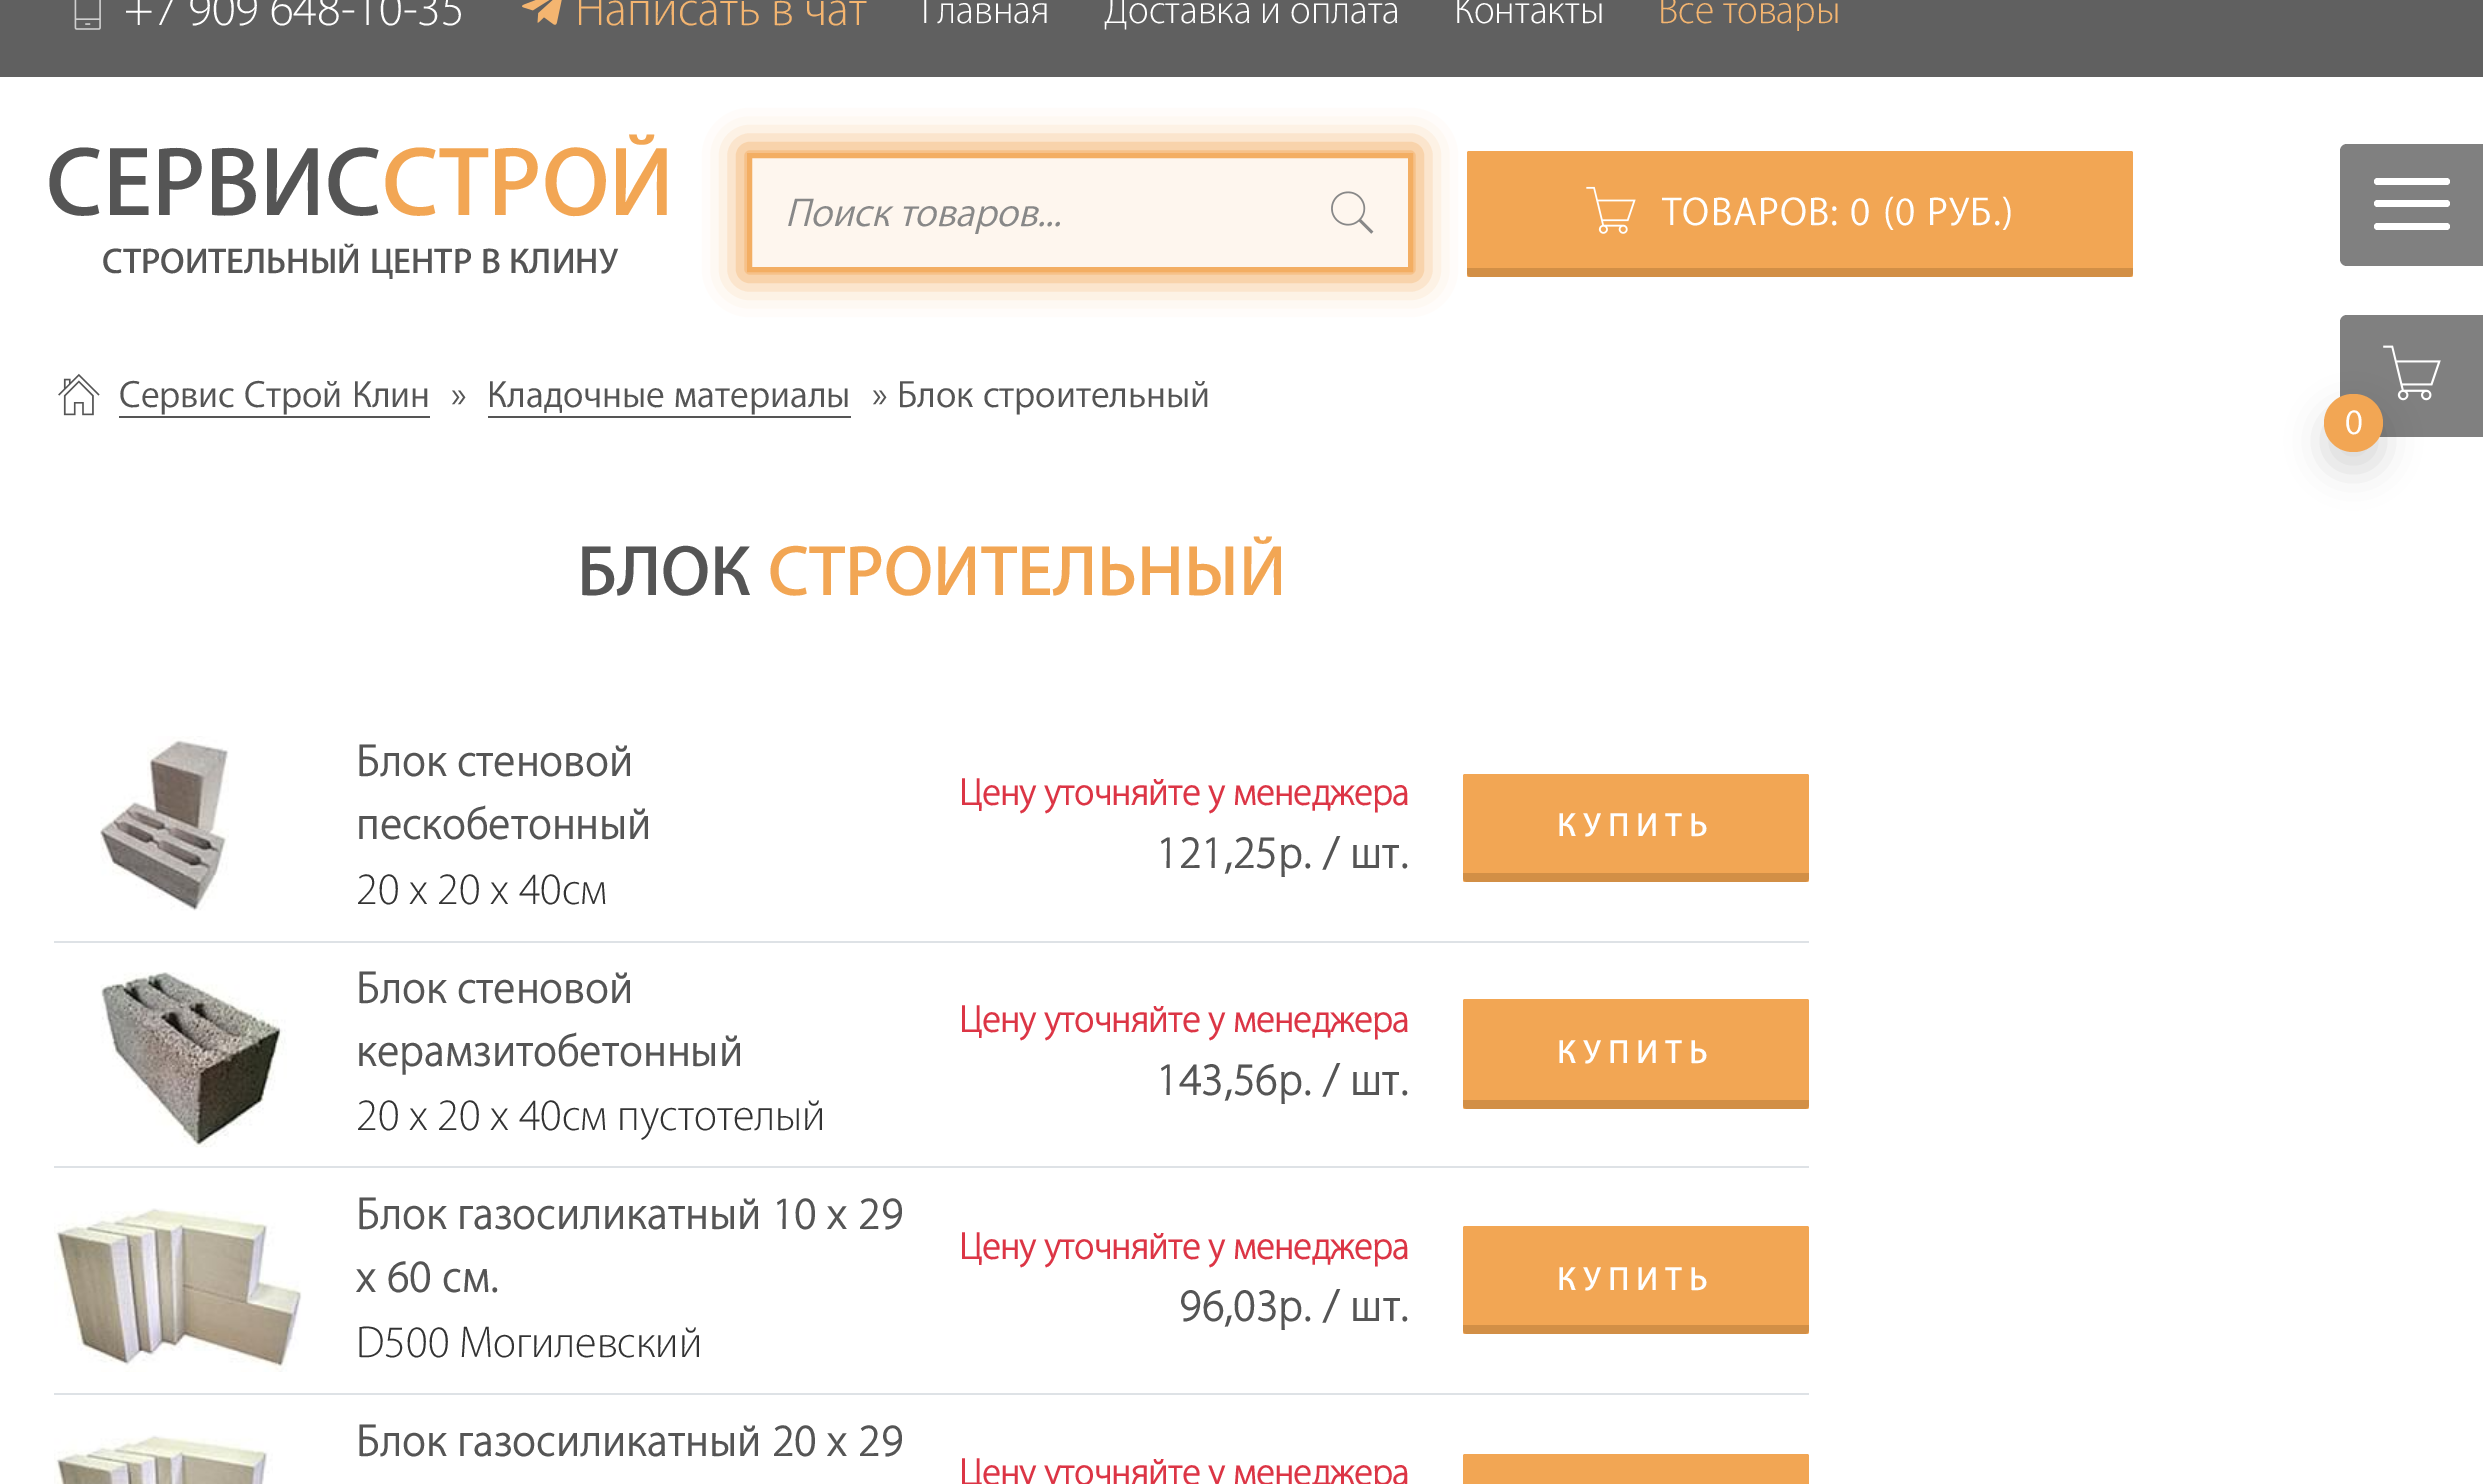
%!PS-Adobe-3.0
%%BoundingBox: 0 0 2483 1484
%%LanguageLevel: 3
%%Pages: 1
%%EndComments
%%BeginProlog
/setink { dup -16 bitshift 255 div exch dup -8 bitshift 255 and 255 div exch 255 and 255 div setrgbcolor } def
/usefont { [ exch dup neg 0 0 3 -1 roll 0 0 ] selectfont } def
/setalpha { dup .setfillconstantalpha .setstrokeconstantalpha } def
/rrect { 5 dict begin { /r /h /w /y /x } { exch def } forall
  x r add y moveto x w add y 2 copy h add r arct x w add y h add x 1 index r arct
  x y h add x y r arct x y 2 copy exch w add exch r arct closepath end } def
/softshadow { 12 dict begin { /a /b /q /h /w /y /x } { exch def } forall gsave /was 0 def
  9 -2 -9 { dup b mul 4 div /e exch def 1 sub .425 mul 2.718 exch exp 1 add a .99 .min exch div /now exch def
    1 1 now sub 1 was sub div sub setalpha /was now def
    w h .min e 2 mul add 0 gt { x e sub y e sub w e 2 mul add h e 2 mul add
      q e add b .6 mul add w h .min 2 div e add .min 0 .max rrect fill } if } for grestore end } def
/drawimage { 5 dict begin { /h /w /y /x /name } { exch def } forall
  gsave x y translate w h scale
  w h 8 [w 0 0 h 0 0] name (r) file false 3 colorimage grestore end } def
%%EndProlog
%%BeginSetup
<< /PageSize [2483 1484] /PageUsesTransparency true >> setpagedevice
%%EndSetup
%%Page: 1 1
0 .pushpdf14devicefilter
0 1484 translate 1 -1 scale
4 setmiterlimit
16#FFFFFF setink
0 0 2483 1484 rectfill
16#606060 setink
0 0 2483 77 rectfill
(img1.raw) 74 0 27 30 drawimage
/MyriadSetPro-Thin 49.5 usefont
16#FFFFFF setink
124 25 moveto (+7 909 648-10-35) show
(img2.raw) 522 0 40 25 drawimage
16#F4B570 setink
575 25 moveto (Написать в чат) show
/MyriadSetPro-Thin 40.5 usefont
16#FFFFFF setink
[
    [(Главная) 921 23]
    [(Доставка и оплата) 1104 23]
    [(Контакты) 1454 23]
] { aload pop moveto show } forall
16#F4B570 setink
1658 23 moveto (Все товары) show
/MyriadSetPro-SemiBold 99 usefont
16#555555 setink
46 215 moveto (СЕРВИС) show
16#F2A654 setink
382 215 moveto (СТРОЙ) show
/MyriadSetPro-SemiBold 36 usefont
16#555555 setink
102 273 moveto (СТРОИТЕЛЬНЫЙ ЦЕНТР В КЛИНУ) show
16#F2A654 setink
740 146 680 133 0 17 1 softshadow
16#FEF6EE setink
749.5 155.5 moveto 1410.5 155.5 lineto 1410.5 269.5 lineto 749.5 269.5 lineto closepath gsave fill grestore
16#F3AE63 setink
5 setlinewidth
stroke
/MyriadSetPro-Italic 40.5 usefont
16#888888 setink
785 226 moveto (Поиск товаров...) show
(img3.raw) 1331 191 43 43 drawimage
16#F2A654 setink
1467 151 666 126 2 rrect fill
(img4.raw) 1586 186 50 48 drawimage
/MyriadSetPro-Regular 40.5 usefont
16#FFFFFF setink
1662 225 moveto 1.1 0 (ТОВАРОВ: 0 \(0 РУБ.\)) ashow
16#D28F46 setink
1467 268 moveto 2133 268 lineto 2133 272.5 lineto 2133 275 2131 277 2128.5 277 curveto 1471.5 277 lineto 1469 277 1467 275 1467 272.5 curveto closepath fill
(img5.raw) 58 373 42 43 drawimage
/MyriadSetPro-Regular 38.25 usefont
16#555555 setink
119 407 moveto (Сервис Строй Клин) show
119 416 311 2 rectfill
451 407 moveto (») show
487 407 moveto (Кладочные материалы) show
488 416 363 2 rectfill
872 407 moveto (» Блок строительный) show
/MyriadSetPro-SemiBold 72 usefont
577 595 moveto (БЛОК) show
16#F2A654 setink
768 595 moveto (СТРОИТЕЛЬНЫЙ) show
(img6.raw) 100 736 129 175 drawimage
/MyriadSetPro-Bold 44.75 usefont
16#555555 setink
356 776 moveto 1.1 0 (Блок стеновой) ashow
356 839 moveto 1.1 0 (пескобетонный) ashow
/MyriadSetPro-Thin 45 usefont
16#333333 setink
356 904 moveto (20 x 20 x 40см) show
/MyriadSetPro-Bold 38.25 usefont
16#DC3545 setink
959 805 moveto (Цену уточняйте у менеджера) show
/MyriadSetPro-Bold 45 usefont
16#555555 setink
1156 868 moveto 1.1 0 (121,25р. / шт.) ashow
16#F2A654 setink
1463 774 346 108 2 rrect fill
/MyriadSetPro-SemiBold 33.75 usefont
16#FFFFFF setink
1557 836 moveto 6.75 0 (КУПИТЬ) ashow
16#D28F46 setink
1463 873 moveto 1809 873 lineto 1809 877.5 lineto 1809 880 1807 882 1804.5 882 curveto 1467.5 882 lineto 1465 882 1463 880 1463 877.5 curveto closepath fill
16#DEE2E6 setink
54 941 1755 2 rectfill
(img7.raw) 100 972 187 176 drawimage
/MyriadSetPro-Bold 44.75 usefont
16#555555 setink
356 1003 moveto 1.1 0 (Блок стеновой) ashow
356 1066 moveto 1.1 0 (керамзитобетонный) ashow
/MyriadSetPro-Thin 45 usefont
16#333333 setink
356 1130 moveto (20 x 20 x 40см пустотелый) show
/MyriadSetPro-Bold 38.25 usefont
16#DC3545 setink
959 1032 moveto (Цену уточняйте у менеджера) show
/MyriadSetPro-Bold 45 usefont
16#555555 setink
1156 1095 moveto 1.1 0 (143,56р. / шт.) ashow
16#F2A654 setink
1463 999 346 110 2 rrect fill
/MyriadSetPro-SemiBold 33.75 usefont
16#FFFFFF setink
1557 1063 moveto 6.75 0 (КУПИТЬ) ashow
16#D28F46 setink
1463 1100 moveto 1809 1100 lineto 1809 1104.5 lineto 1809 1107 1807 1109 1804.5 1109 curveto 1467.5 1109 lineto 1465 1109 1463 1107 1463 1104.5 curveto closepath fill
16#DEE2E6 setink
54 1166 1755 2 rectfill
(img8.raw) 54 1208 248 164 drawimage
/MyriadSetPro-Bold 44.75 usefont
16#555555 setink
356 1229 moveto 1.1 0 (Блок газосиликатный 10 x 29) ashow
356 1292 moveto 1.1 0 (x 60 см.) ashow
/MyriadSetPro-Thin 45 usefont
16#333333 setink
356 1357 moveto (D500 Могилевский) show
/MyriadSetPro-Bold 38.25 usefont
16#DC3545 setink
959 1259 moveto (Цену уточняйте у менеджера) show
/MyriadSetPro-Bold 45 usefont
16#555555 setink
1179 1321 moveto 1.1 0 (96,03р. / шт.) ashow
16#F2A654 setink
1463 1226 346 108 2 rrect fill
/MyriadSetPro-SemiBold 33.75 usefont
16#FFFFFF setink
1557 1290 moveto 6.75 0 (КУПИТЬ) ashow
16#D28F46 setink
1463 1325 moveto 1809 1325 lineto 1809 1329.5 lineto 1809 1332 1807 1334 1804.5 1334 curveto 1467.5 1334 lineto 1465 1334 1463 1332 1463 1329.5 curveto closepath fill
16#DEE2E6 setink
54 1393 1755 2 rectfill
(img9.raw) 54 1435 219 49 drawimage
/MyriadSetPro-Bold 44.75 usefont
16#555555 setink
356 1456 moveto 1.1 0 (Блок газосиликатный 20 x 29) ashow
/MyriadSetPro-Bold 38.25 usefont
16#DC3545 setink
959 1485 moveto (Цену уточняйте у менеджера) show
16#F2A654 setink
1463 1454 346 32 2 rrect fill
16#808080 setink
2347 144 moveto 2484 144 lineto 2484 266 lineto 2347 266 lineto 2343 266 2340 263 2340 259 curveto 2340 151 lineto 2340 147 2343 144 2347 144 curveto closepath fill
16#FFFFFF setink
2374 200 76 7 3.5 rrect fill
2374 178 76 7 3.5 rrect fill
2374 223 76 7 3.5 rrect fill
16#808080 setink
2347 315 moveto 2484 315 lineto 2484 437 lineto 2347 437 lineto 2343 437 2340 434 2340 430 curveto 2340 322 lineto 2340 318 2343 315 2347 315 curveto closepath fill
(img10.raw) 2383 345 58 56 drawimage
16#000000 setink
2324 412 59 58 29 18 0.15 softshadow
16#F2A654 setink
2324 394 59 58 29 rrect fill
/MyriadSetPro-Regular 36 usefont
16#FFFFFF setink
2345 434 moveto (0) show
.poppdf14devicefilter showpage
%%EOF
